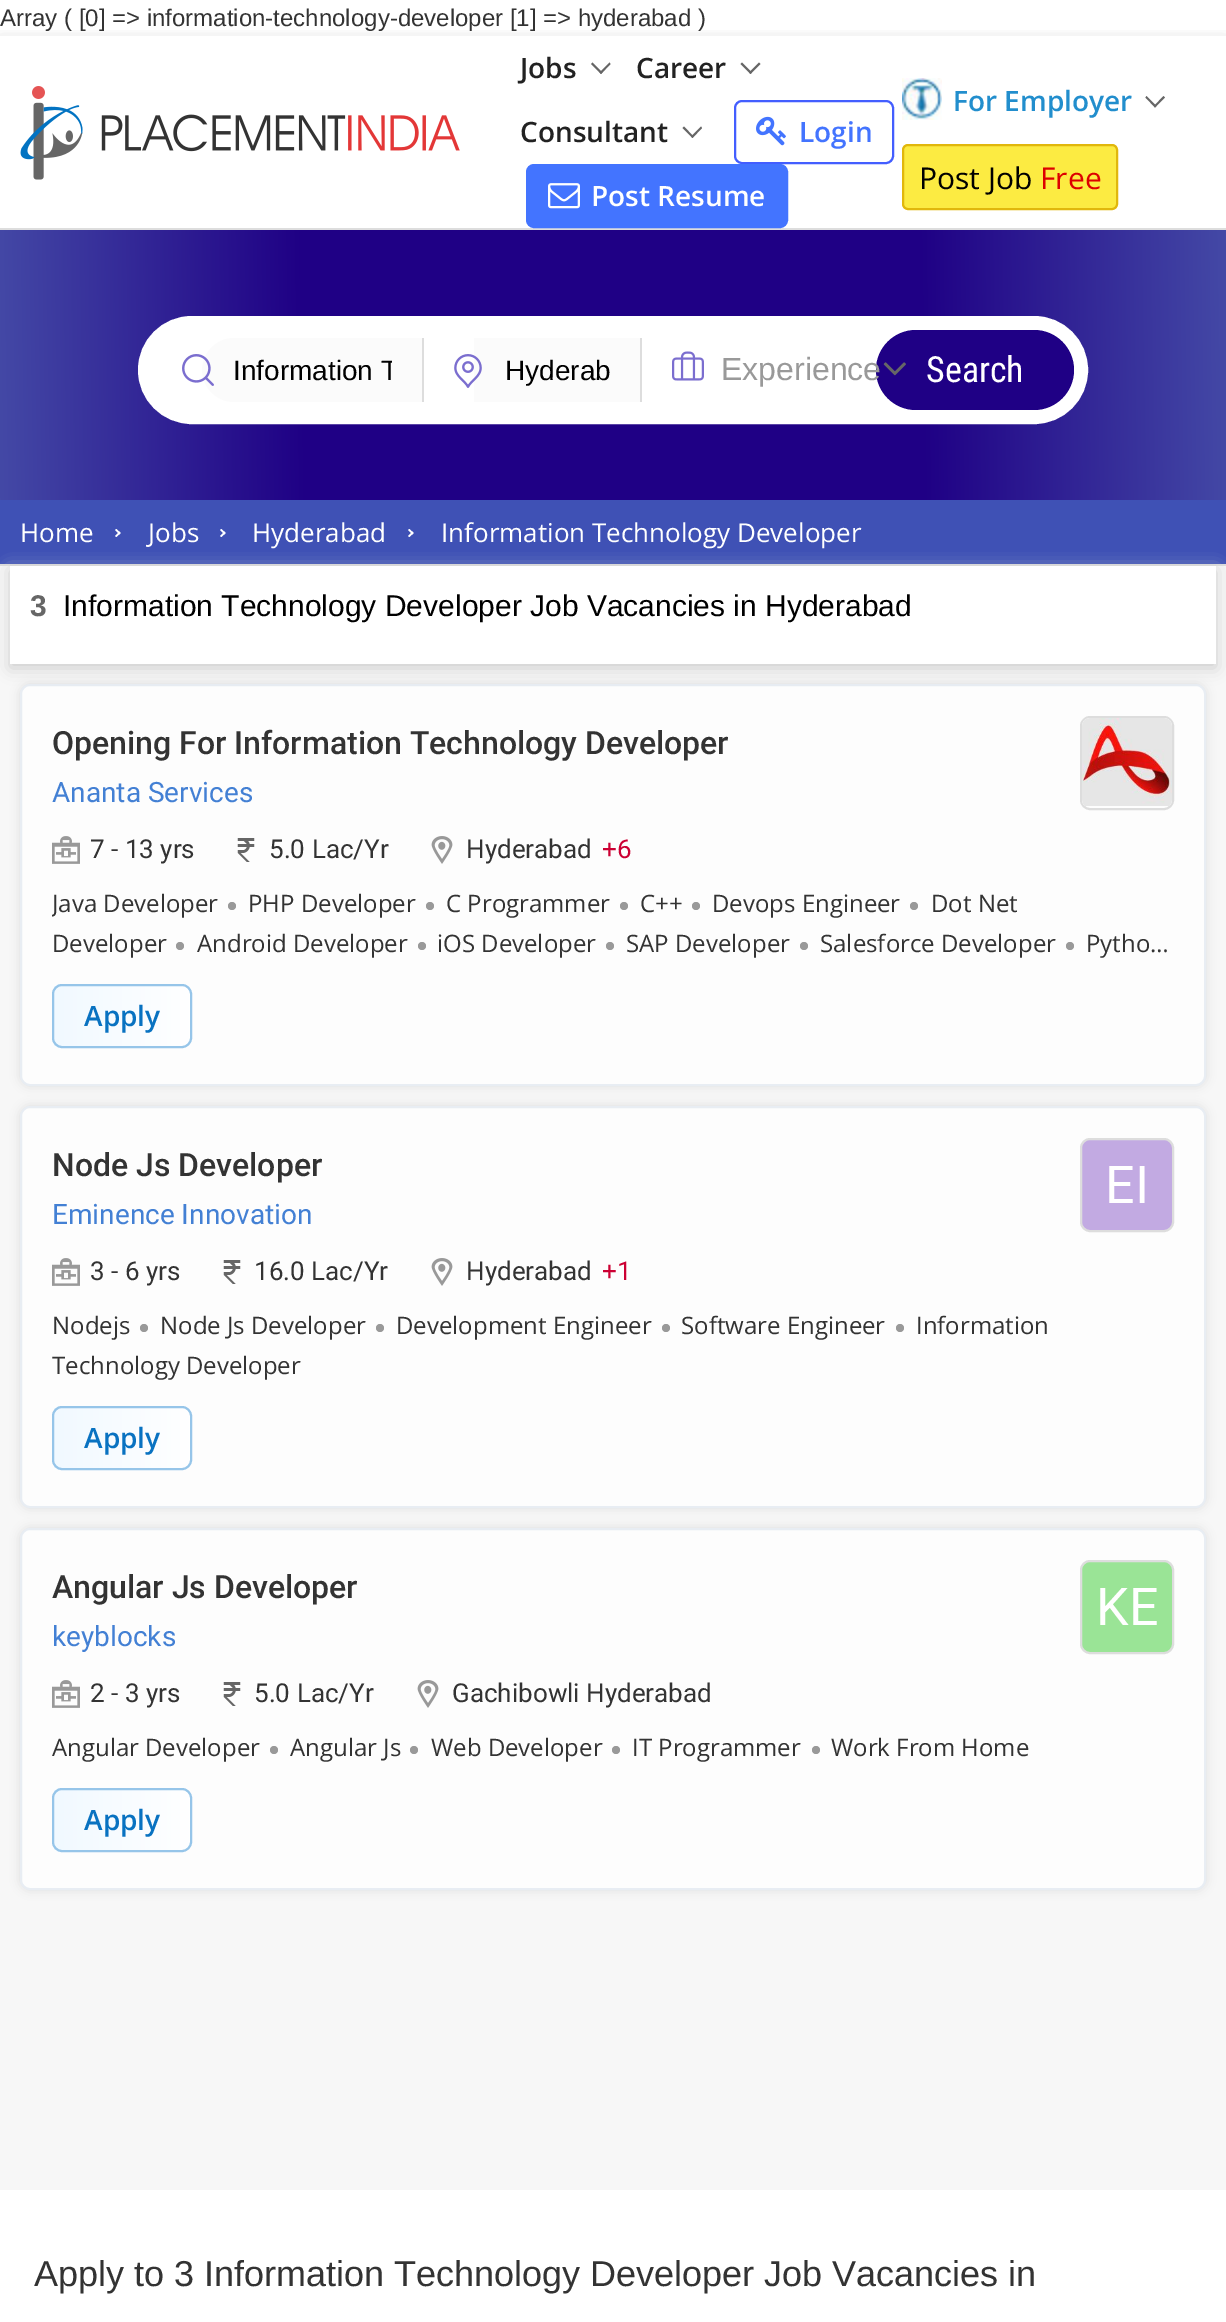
%!PS-Adobe-3.0
%%BoundingBox: 0 0 1226 2322
%%LanguageLevel: 3
%%Pages: 1
%%EndComments
%%BeginProlog
/setink { dup -16 bitshift 255 div exch dup -8 bitshift 255 and 255 div exch 255 and 255 div setrgbcolor } def
/usefont { [ exch dup neg 0 0 3 -1 roll 0 0 ] selectfont } def
/setalpha { dup .setfillconstantalpha .setstrokeconstantalpha } def
/disc { newpath 0 360 arc closepath } def
/rrect { 5 dict begin { /r /h /w /y /x } { exch def } forall
  x r add y moveto x w add y 2 copy h add r arct x w add y h add x 1 index r arct
  x y h add x y r arct x y 2 copy exch w add exch r arct closepath end } def
/softshadow { 12 dict begin { /a /b /q /h /w /y /x } { exch def } forall gsave /was 0 def
  9 -2 -9 { dup b mul 4 div /e exch def 1 sub .425 mul 2.718 exch exp 1 add a .99 .min exch div /now exch def
    1 1 now sub 1 was sub div sub setalpha /was now def
    w h .min e 2 mul add 0 gt { x e sub y e sub w e 2 mul add h e 2 mul add
      q e add b .6 mul add w h .min 2 div e add .min 0 .max rrect fill } if } for grestore end } def
/drawimage { 5 dict begin { /h /w /y /x /name } { exch def } forall
  gsave x y translate w h scale
  w h 8 [w 0 0 h 0 0] name (r) file false 3 colorimage grestore end } def
%%EndProlog
%%BeginSetup
<< /PageSize [1226 2322] /PageUsesTransparency true >> setpagedevice
%%EndSetup
%%Page: 1 1
0 .pushpdf14devicefilter
0 2322 translate 1 -1 scale
4 setmiterlimit
16#FFFFFF setink
0 0 1226 2322 rectfill
gsave
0 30 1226 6 rectclip
16#000000 setink
0 40 1226 194 0 10 0.12 softshadow
grestore
/LiberationSans-Regular 24 usefont
16#333333 setink
0 26 moveto (Array \( [0] => information-technology-developer [1] => hyderabad \)) show
16#DDDDDD setink
0 228 1226 2 rectfill
(img1.raw) 20 86 440 94 drawimage
/OpenSans-SemiBold 28 usefont
16#222222 setink
520 78 moveto (Jobs) show
16#666666 setink
610.5 64 moveto 601 74 lineto 599.5 72.5 lineto 609.5 62.5 lineto closepath fill
602.5 72.5 moveto 601 74 lineto 591 64 lineto 592.5 62.5 lineto closepath fill
16#222222 setink
636 78 moveto (Career) show
16#666666 setink
760.5 64 moveto 750.5 74 lineto 749 72.5 lineto 759 62.5 lineto closepath fill
752 72.5 moveto 750.5 74 lineto 740.5 64 lineto 742 62.5 lineto closepath fill
16#222222 setink
520 142 moveto (Consultant) show
16#666666 setink
702 128 moveto 692.5 138 lineto 691 136.5 lineto 701 126.5 lineto closepath fill
693.5 136.5 moveto 692.5 138 lineto 682.5 128 lineto 684 126.5 lineto closepath fill
16#435EFF setink
2 setlinewidth
735 101 158 62 7 rrect stroke
(img2.raw) 756 116 30 30 drawimage
16#4374FF setink
799 142 moveto (Login) show
527 165 260 62 7 rrect gsave fill grestore
stroke
(img3.raw) 548 183 32 26 drawimage
16#FFFFFF setink
591 206 moveto (Post Resume) show
(img4.raw) 902 78 40 42 drawimage
16#228ECD setink
953 111 moveto (For Employer) show
16#666666 setink
1165 97.5 moveto 1155 107.5 lineto 1154 106 lineto 1163.5 96 lineto closepath fill
1156.5 106 moveto 1155 107.5 lineto 1145.5 97.5 lineto 1146.5 96 lineto closepath fill
16#FCEB42 setink
903 145 214 64 5 rrect gsave fill grestore
16#E1B70C setink
stroke
/OpenSans-Regular 30 usefont
16#000000 setink
919 189 moveto (Post Job) show
16#DD0000 setink
1040 189 moveto (Free) show
gsave 0 230 moveto 1226 230 lineto 1226 500 lineto 0 500 lineto closepath clip newpath
<< /ShadingType 2 /ColorSpace /DeviceRGB /Coords [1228 354 -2.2 376] /Extend [true true] /Function << /FunctionType 3 /Domain [0 1] /Functions [<< /FunctionType 2 /Domain [0 1] /C0 [0.267 0.286 0.651] /C1 [0.122 0 0.522] /N 1 >> << /FunctionType 2 /Domain [0 1] /C0 [0.122 0 0.522] /C1 [0.122 0 0.522] /N 1 >> << /FunctionType 2 /Domain [0 1] /C0 [0.122 0 0.522] /C1 [0.267 0.286 0.651] /N 1 >>] /Bounds [0.25 0.75] /Encode [0 1 0 1 0 1] >> >> shfill grestore
16#FFFFFF setink
145 323 936 94 47 rrect gsave fill grestore
14 setlinewidth
stroke
16#DDDDDD setink
422 338 2 64 rectfill
16#FBFBFB setink
234 338 moveto 422 338 lineto 422 402 lineto 234 402 lineto 216.5 402 202 387.5 202 370 curveto 202 352.5 216.5 338 234 338 curveto closepath fill
(img5.raw) 182 354 32 32 drawimage
gsave
232 354 160 32 rectclip
/LiberationSans-Regular 28 usefont
16#000000 setink
233 380 moveto (Information T) show
grestore
16#DDDDDD setink
640 338 2 64 rectfill
16#FBFBFB setink
474 338 166 64 rectfill
(img6.raw) 454 354 28 34 drawimage
/LiberationSans-Regular 28 usefont
16#000000 setink
505 380 moveto (Hyderab) show
(img7.raw) 672 351 32 30 drawimage
16#1F0085 setink
876 330 198 80 40 rrect fill
/LiberationSans-Regular 32 usefont
16#999999 setink
721 380 moveto (Experience) show
(img8.raw) 883 362 23 14 drawimage
/RobotoCondensed-Regular 36 usefont
16#FFFFFF setink
926 382 moveto (Search) show
16#DDDDDD setink
0 564 1226 2 rectfill
16#3F51B5 setink
0 500 1226 64 rectfill
/OpenSans-Regular 26 usefont
16#FFFFFF setink
20 542 moveto (Home) show
116.5 529 moveto 120.5 533 lineto 119.5 534.5 lineto 115 530 lineto closepath fill
119.5 531.5 moveto 120.5 533 lineto 116.5 537 lineto 115 536 lineto closepath fill
148 542 moveto (Jobs) show
221.5 529 moveto 225.5 533 lineto 224.5 534.5 lineto 220 530 lineto closepath fill
224.5 531.5 moveto 225.5 533 lineto 221.5 537 lineto 220 536 lineto closepath fill
252 542 moveto (Hyderabad) show
409.5 529 moveto 413.5 533 lineto 412.5 534.5 lineto 408 530 lineto closepath fill
412.5 531.5 moveto 413.5 533 lineto 409.5 537 lineto 408 536 lineto closepath fill
441 542 moveto (Information Technology Developer) show
16#F7F7F7 setink
0 566 1226 1624 rectfill
gsave
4 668 moveto 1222 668 lineto 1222 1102 lineto 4 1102 lineto closepath 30 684 moveto 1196 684 lineto 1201.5 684 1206 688.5 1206 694 curveto 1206 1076 lineto 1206 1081.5 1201.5 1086 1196 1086 curveto 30 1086 lineto 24.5 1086 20 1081.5 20 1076 curveto 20 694 lineto 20 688.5 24.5 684 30 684 curveto closepath eoclip newpath
16#DDDDDD setink
20 684 1186 402 10 5 1 softshadow
grestore
0.7 setalpha
16#FFFFFF setink
21 685 1184 400 9 rrect fill
1 setalpha
16#E8EDF3 setink
2 setlinewidth
21 685 1184 400 9 rrect stroke
16#CCCCCC setink
10 570 1206 98 0 8 1 softshadow
16#FFFFFF setink
10 566 1206 98 rectfill
/LiberationSans-Bold 30 usefont
16#666666 setink
30 616 moveto (3) show
/LiberationSans-Regular 30 usefont
16#000000 setink
63 616 moveto (Information Technology Developer Job Vacancies in Hyderabad) show
/Roboto-Medium 32 usefont
16#333333 setink
52 754 moveto (Opening For Information Technology Developer) show
/Roboto-Regular 28 usefont
16#4380D4 setink
52 802 moveto (Ananta Services) show
16#DDDDDD setink
1081 717 92 92 9 rrect stroke
(img9.raw) 1082 718 90 88 drawimage
(img10.raw) 52 836 28 28 drawimage
/Roboto-Regular 26 usefont
16#333333 setink
90 858 moveto (7 - 13 yrs) show
(img11.raw) 237 838 18 24 drawimage
269 858 moveto (5.0 Lac/Yr) show
(img12.raw) 431 836 22 28 drawimage
466 858 moveto (Hyderabad) show
16#CC0033 setink
602 858 moveto (+6) show
gsave
52 884 1122 80 rectclip
/OpenSans-Regular 24 usefont
16#333333 setink
52 912 moveto (Java Developer) show
grestore
16#999999 setink
232 906 4 disc fill
/OpenSans-Regular 24 usefont
16#333333 setink
248 912 moveto (PHP Developer) show
16#999999 setink
914 906 4 disc fill
16#333333 setink
931 912 moveto (Dot Net) show
52 952 moveto (Developer) show
16#999999 setink
430 906 4 disc fill
16#333333 setink
446 912 moveto (C Programmer) show
16#999999 setink
624 906 4 disc fill
16#333333 setink
640 912 moveto (C++) show
16#999999 setink
696 906 4 disc fill
16#333333 setink
712 912 moveto (Devops Engineer) show
16#999999 setink
180 946 4 disc fill
16#333333 setink
197 952 moveto (Android Developer) show
16#999999 setink
422 946 4 disc fill
16#333333 setink
437 952 moveto (iOS Developer) show
16#999999 setink
610 946 4 disc fill
16#333333 setink
626 952 moveto (SAP Developer) show
16#999999 setink
804 946 4 disc fill
16#333333 setink
820 952 moveto (Salesforce Developer) show
16#999999 setink
1070 946 4 disc fill
16#333333 setink
1086 952 moveto (Pytho…) show
gsave
52 984 140 64 10 rrect clip newpath
gsave 54 984 moveto 190 984 lineto 190 1048 lineto 54 1048 lineto closepath clip newpath
<< /ShadingType 2 /ColorSpace /DeviceRGB /Coords [54 1016 190 1016] /Extend [true true] /Function << /FunctionType 2 /Domain [0 1] /C0 [0.945 0.976 1] /C1 [1 1 1] /N 1 >> >> shfill grestore
grestore
16#96C5E9 setink
53 985 138 62 9 rrect stroke
/OpenSans-SemiBold 28 usefont
16#0972C1 setink
84 1026 moveto (Apply) show
gsave
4 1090 moveto 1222 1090 lineto 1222 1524 lineto 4 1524 lineto closepath 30 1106 moveto 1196 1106 lineto 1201.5 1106 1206 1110.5 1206 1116 curveto 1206 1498 lineto 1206 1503.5 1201.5 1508 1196 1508 curveto 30 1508 lineto 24.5 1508 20 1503.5 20 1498 curveto 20 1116 lineto 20 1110.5 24.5 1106 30 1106 curveto closepath eoclip newpath
16#DDDDDD setink
20 1106 1186 402 10 5 1 softshadow
grestore
0.7 setalpha
16#FFFFFF setink
21 1107 1184 400 9 rrect fill
1 setalpha
16#E8EDF3 setink
21 1107 1184 400 9 rrect stroke
/Roboto-Medium 32 usefont
16#333333 setink
52 1176 moveto (Node Js Developer) show
/Roboto-Regular 28 usefont
16#4380D4 setink
52 1224 moveto (Eminence Innovation) show
16#C2AAE2 setink
1081 1139 92 92 9 rrect gsave fill grestore
16#DDDDDD setink
stroke
/Roboto-Regular 52 usefont
16#FFFFFF setink
1105 1203 moveto (EI) show
(img10.raw) 52 1258 28 28 drawimage
/Roboto-Regular 26 usefont
16#333333 setink
90 1280 moveto (3 - 6 yrs) show
(img11.raw) 223 1260 18 24 drawimage
254 1280 moveto (16.0 Lac/Yr) show
(img12.raw) 431 1258 22 28 drawimage
466 1280 moveto (Hyderabad) show
16#CC0033 setink
602 1280 moveto (+1) show
16#999999 setink
900 1328 4 disc fill
/OpenSans-Regular 24 usefont
16#333333 setink
[
    [(Information) 916 1334]
    [(Technology Developer) 52 1374]
    [(Nodejs) 52 1334]
] { aload pop moveto show } forall
16#999999 setink
144 1328 4 disc fill
16#333333 setink
160 1334 moveto (Node Js Developer) show
16#999999 setink
380 1328 4 disc fill
16#333333 setink
396 1334 moveto (Development Engineer) show
16#999999 setink
666 1328 4 disc fill
16#333333 setink
681 1334 moveto (Software Engineer) show
gsave
52 1406 140 64 10 rrect clip newpath
gsave 54 1406 moveto 190 1406 lineto 190 1470 lineto 54 1470 lineto closepath clip newpath
<< /ShadingType 2 /ColorSpace /DeviceRGB /Coords [54 1438 190 1438] /Extend [true true] /Function << /FunctionType 2 /Domain [0 1] /C0 [0.945 0.976 1] /C1 [1 1 1] /N 1 >> >> shfill grestore
grestore
16#96C5E9 setink
53 1407 138 62 9 rrect stroke
/OpenSans-SemiBold 28 usefont
16#0972C1 setink
84 1448 moveto (Apply) show
gsave
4 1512 moveto 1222 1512 lineto 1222 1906 lineto 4 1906 lineto closepath 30 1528 moveto 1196 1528 lineto 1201.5 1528 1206 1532.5 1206 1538 curveto 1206 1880 lineto 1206 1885.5 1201.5 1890 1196 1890 curveto 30 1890 lineto 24.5 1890 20 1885.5 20 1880 curveto 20 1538 lineto 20 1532.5 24.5 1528 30 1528 curveto closepath eoclip newpath
16#DDDDDD setink
20 1528 1186 362 10 5 1 softshadow
grestore
0.7 setalpha
16#FFFFFF setink
21 1529 1184 360 9 rrect fill
1 setalpha
16#E8EDF3 setink
21 1529 1184 360 9 rrect stroke
/Roboto-Medium 32 usefont
16#333333 setink
52 1598 moveto (Angular Js Developer) show
/Roboto-Regular 28 usefont
16#4380D4 setink
52 1646 moveto (keyblocks) show
16#9AE496 setink
1081 1561 92 92 9 rrect gsave fill grestore
16#DDDDDD setink
stroke
/Roboto-Regular 52 usefont
16#FFFFFF setink
1096 1625 moveto (KE) show
(img10.raw) 52 1680 28 28 drawimage
/Roboto-Regular 26 usefont
16#333333 setink
90 1702 moveto (2 - 3 yrs) show
(img11.raw) 223 1682 18 24 drawimage
254 1702 moveto (5.0 Lac/Yr) show
(img12.raw) 417 1680 22 28 drawimage
452 1702 moveto (Gachibowli Hyderabad) show
/OpenSans-Regular 24 usefont
52 1756 moveto (Angular Developer) show
16#999999 setink
274 1750 4 disc fill
16#333333 setink
290 1756 moveto (Angular Js) show
16#999999 setink
414 1750 4 disc fill
16#333333 setink
431 1756 moveto (Web Developer) show
16#999999 setink
616 1750 4 disc fill
16#333333 setink
632 1756 moveto (IT Programmer) show
16#999999 setink
816 1750 4 disc fill
16#333333 setink
831 1756 moveto (Work From Home) show
gsave
52 1788 140 64 10 rrect clip newpath
gsave 54 1788 moveto 190 1788 lineto 190 1852 lineto 54 1852 lineto closepath clip newpath
<< /ShadingType 2 /ColorSpace /DeviceRGB /Coords [54 1820 190 1820] /Extend [true true] /Function << /FunctionType 2 /Domain [0 1] /C0 [0.945 0.976 1] /C1 [1 1 1] /N 1 >> >> shfill grestore
grestore
16#96C5E9 setink
53 1789 138 62 9 rrect stroke
/OpenSans-SemiBold 28 usefont
16#0972C1 setink
84 1830 moveto (Apply) show
/LiberationSans-Regular 36 usefont
16#333333 setink
34 2286 moveto (Apply to 3 Information Technology Developer Job Vacancies in) show
.poppdf14devicefilter showpage
%%EOF
